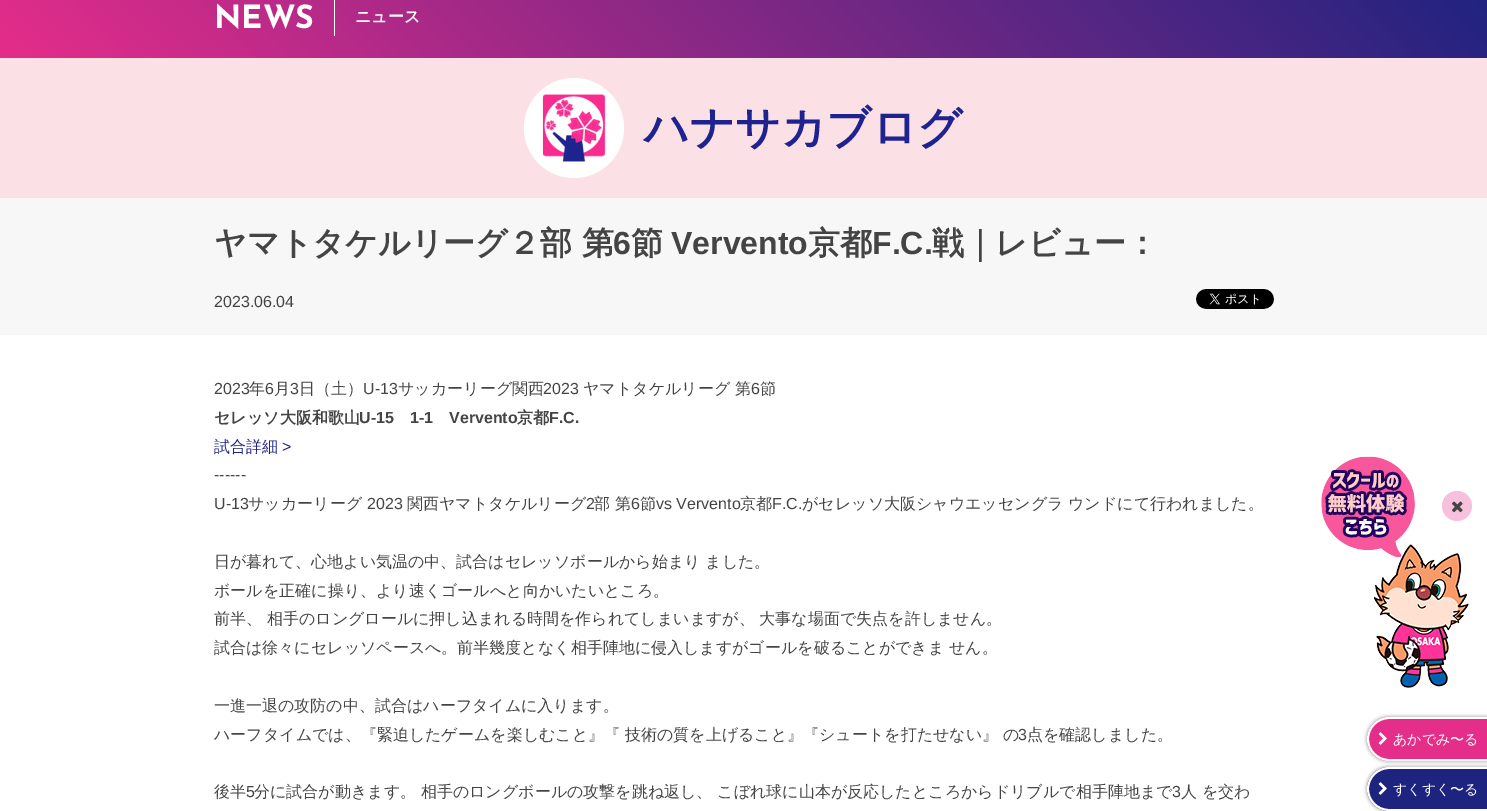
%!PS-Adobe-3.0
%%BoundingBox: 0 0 1487 811
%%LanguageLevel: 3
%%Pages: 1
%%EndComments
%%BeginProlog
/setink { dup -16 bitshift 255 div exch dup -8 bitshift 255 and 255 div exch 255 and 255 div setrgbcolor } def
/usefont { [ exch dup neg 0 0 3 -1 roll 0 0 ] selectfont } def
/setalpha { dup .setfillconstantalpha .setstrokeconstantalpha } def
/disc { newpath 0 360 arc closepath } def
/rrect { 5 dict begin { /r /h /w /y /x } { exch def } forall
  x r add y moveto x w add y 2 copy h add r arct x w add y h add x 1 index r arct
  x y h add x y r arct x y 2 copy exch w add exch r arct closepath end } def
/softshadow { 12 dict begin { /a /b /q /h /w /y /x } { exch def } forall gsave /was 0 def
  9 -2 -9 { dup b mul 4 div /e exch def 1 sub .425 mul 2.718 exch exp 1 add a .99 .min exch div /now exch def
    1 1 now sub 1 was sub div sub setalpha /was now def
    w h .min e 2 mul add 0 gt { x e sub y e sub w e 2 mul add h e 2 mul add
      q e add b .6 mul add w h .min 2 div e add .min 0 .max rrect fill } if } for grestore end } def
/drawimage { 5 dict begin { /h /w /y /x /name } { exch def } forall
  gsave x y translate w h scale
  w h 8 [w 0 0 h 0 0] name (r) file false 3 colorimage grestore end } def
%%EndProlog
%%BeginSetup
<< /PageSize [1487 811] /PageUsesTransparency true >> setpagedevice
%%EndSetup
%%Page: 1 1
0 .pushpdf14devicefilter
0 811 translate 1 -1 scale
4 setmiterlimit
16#FFFFFF setink
0 0 1487 811 rectfill
gsave 0 0 moveto 1487 0 lineto 1487 58 lineto 0 58 lineto closepath clip newpath
<< /ShadingType 2 /ColorSpace /DeviceRGB /Coords [352 410 1136 -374] /Extend [true true] /Function << /FunctionType 2 /Domain [0 1] /C0 [0.898 0.176 0.541] /C1 [0.118 0.137 0.502] /N 1 >> >> shfill grestore
334 0 1 36 rectfill
/JosefinSans-Bold 32 usefont
214 28 moveto (NEWS) show
/WenQuanYiZenHei-Bold 16 usefont
355 22 moveto (ニュース) show
16#FBE1E5 setink
0 58 1487 140 rectfill
16#FFFFFF setink
574 128 50 disc fill
(img1.raw) 542 94 64 68 drawimage
/WenQuanYiZenHei-Bold 44.5 usefont
16#1F238F setink
644 143 moveto (ハナサカブログ) show
16#F7F7F7 setink
0 198 1487 137 rectfill
/WenQuanYiZenHei-Bold 32 usefont
16#444444 setink
214 254 moveto (ヤマトタケルリーグ２部 第) show
/LiberationSans-Bold 32 usefont
613 254 moveto (6) show
/WenQuanYiZenHei-Bold 32 usefont
631 254 moveto (節) show
/LiberationSans-Bold 32 usefont
671 254 moveto (Vervento) show
/WenQuanYiZenHei-Bold 32 usefont
808 254 moveto (京都) show
/LiberationSans-Bold 32 usefont
872 254 moveto (F.C.) show
/WenQuanYiZenHei-Bold 32 usefont
932 254 moveto (戦｜レビュー：) show
/LiberationSans-Regular 16 usefont
214 307 moveto (2023.06.04) show
(img2.raw) 1196 289 78 20 drawimage
214 394 moveto (2023) show
/WenQuanYiZenHei-Medium 16 usefont
249 394 moveto (年) show
/LiberationSans-Regular 16 usefont
265 394 moveto (6) show
/WenQuanYiZenHei-Medium 16 usefont
274 394 moveto (月) show
/LiberationSans-Regular 16 usefont
290 394 moveto (3) show
/WenQuanYiZenHei-Medium 16 usefont
299 394 moveto (日（土）) show
/LiberationSans-Regular 16 usefont
363 394 moveto (U-13) show
/WenQuanYiZenHei-Medium 16 usefont
398 394 moveto (サッカーリーグ関⻄) show
/LiberationSans-Regular 16 usefont
543 394 moveto (2023) show
/WenQuanYiZenHei-Medium 16 usefont
583 394 moveto (ヤマトタケルリーグ 第) show
/LiberationSans-Regular 16 usefont
751 394 moveto (6) show
/WenQuanYiZenHei-Medium 16 usefont
760 394 moveto (節) show
/WenQuanYiZenHei-Bold 16 usefont
214 423 moveto (セレッソ大阪和歌山) show
/LiberationSans-Bold 16 usefont
[
    [(U-15) 359 423]
    [(1-1) 410 423]
    [(Vervento) 449 423]
] { aload pop moveto show } forall
/WenQuanYiZenHei-Bold 16 usefont
517 423 moveto (京都) show
/LiberationSans-Bold 16 usefont
549 423 moveto (F.C.) show
/WenQuanYiZenHei-Medium 16 usefont
16#1E2380 setink
214 452 moveto (試合詳細) show
/LiberationSans-Regular 16 usefont
282 452 moveto (>) show
16#444444 setink
214 480 moveto (------) show
214 509 moveto (U-13) show
/WenQuanYiZenHei-Medium 16 usefont
248 509 moveto (サッカーリーグ) show
/LiberationSans-Regular 16 usefont
367 509 moveto (2023) show
/WenQuanYiZenHei-Medium 16 usefont
407 509 moveto (関西ヤマトタケルリーグ) show
/LiberationSans-Regular 16 usefont
586 509 moveto (2) show
/WenQuanYiZenHei-Medium 16 usefont
594 509 moveto (部) show
615 509 moveto (第) show
/LiberationSans-Regular 16 usefont
631 509 moveto (6) show
/WenQuanYiZenHei-Medium 16 usefont
640 509 moveto (節) show
/LiberationSans-Regular 16 usefont
656 509 moveto (vs Vervento) show
/WenQuanYiZenHei-Medium 16 usefont
740 509 moveto (京都) show
/LiberationSans-Regular 16 usefont
772 509 moveto (F.C.) show
/WenQuanYiZenHei-Medium 16 usefont
[
    [(がセレッソ大阪シャウエッセングラ) 802 509]
    [(ウンドにて行われました。) 1068 509]
    [(日が暮れて、心地よい気温の中、試合はセレッソボールから始まり ました。) 214 567]
    [(ボールを正確に操り、より速くゴールへと向かいたいところ。) 214 596]
    [(前半、 相手のロングロールに押し込まれる時間を作られてしまいますが、 大事な場面で失点を許しません。) 214 624]
    [(試合は徐々にセレッソペースへ。前半幾度となく相手陣地に侵入しますがゴールを破ることができま せん。) 214 653]
    [(一進一退の攻防の中、試合はハーフタイムに入ります。) 214 711]
    [(ハーフタイムでは、『緊迫したゲームを楽しむこと』『 技術の質を上げること』『シュートを打たせない』 の) 214 740]
] { aload pop moveto show } forall
/LiberationSans-Regular 16 usefont
1018 740 moveto (3) show
/WenQuanYiZenHei-Medium 16 usefont
1027 740 moveto (点を確認しました。) show
214 797 moveto (後半) show
/LiberationSans-Regular 16 usefont
246 797 moveto (5) show
/WenQuanYiZenHei-Medium 16 usefont
254 797 moveto (分に試合が動きます。 相手のロングボールの攻撃を跳ね返し、 こぼれ球に山本が反応したところからドリブルで相手陣地まで) show
/LiberationSans-Regular 16 usefont
1172 797 moveto (3) show
/WenQuanYiZenHei-Medium 16 usefont
1181 797 moveto (人 を交わ) show
(img3.raw) 1321 456 148 232 drawimage
16#F7C0DC setink
1457 506 15 disc fill
(img4.raw) 1452 501 11 12 drawimage
16#000000 setink
1366 716 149 46 23 1.5 0.25 softshadow
16#E52D8A setink
1389 717 moveto 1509 717 lineto 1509 761 lineto 1389 761 lineto 1377 761 1367 751 1367 739 curveto 1367 727 1377 717 1389 717 curveto closepath fill
16#FFFFFF setink
1389 717 moveto 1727 717 lineto 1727 761 lineto 1389 761 lineto 1377 761 1367 751 1367 739 curveto 1367 727 1377 717 1389 717 curveto closepath 1389 719 moveto 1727 719 lineto 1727 759 lineto 1389 759 lineto 1378 759 1369 750 1369 739 curveto 1369 728 1378 719 1389 719 curveto closepath eofill
(img5.raw) 1378 732 9 13 drawimage
/WenQuanYiZenHei-Medium 14 usefont
1393 744 moveto (あかでみ〜る) show
16#000000 setink
1366 766 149 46 23 1.5 0.25 softshadow
16#1E2380 setink
1389 767 moveto 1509 767 lineto 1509 811 lineto 1389 811 lineto 1377 811 1367 801 1367 789 curveto 1367 777 1377 767 1389 767 curveto closepath fill
16#FFFFFF setink
1389 767 moveto 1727 767 lineto 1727 811 lineto 1389 811 lineto 1377 811 1367 801 1367 789 curveto 1367 777 1377 767 1389 767 curveto closepath 1389 769 moveto 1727 769 lineto 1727 809 lineto 1389 809 lineto 1378 809 1369 800 1369 789 curveto 1369 778 1378 769 1389 769 curveto closepath eofill
(img6.raw) 1378 782 9 13 drawimage
1393 794 moveto (すくすく〜る) show
.poppdf14devicefilter showpage
%%EOF
